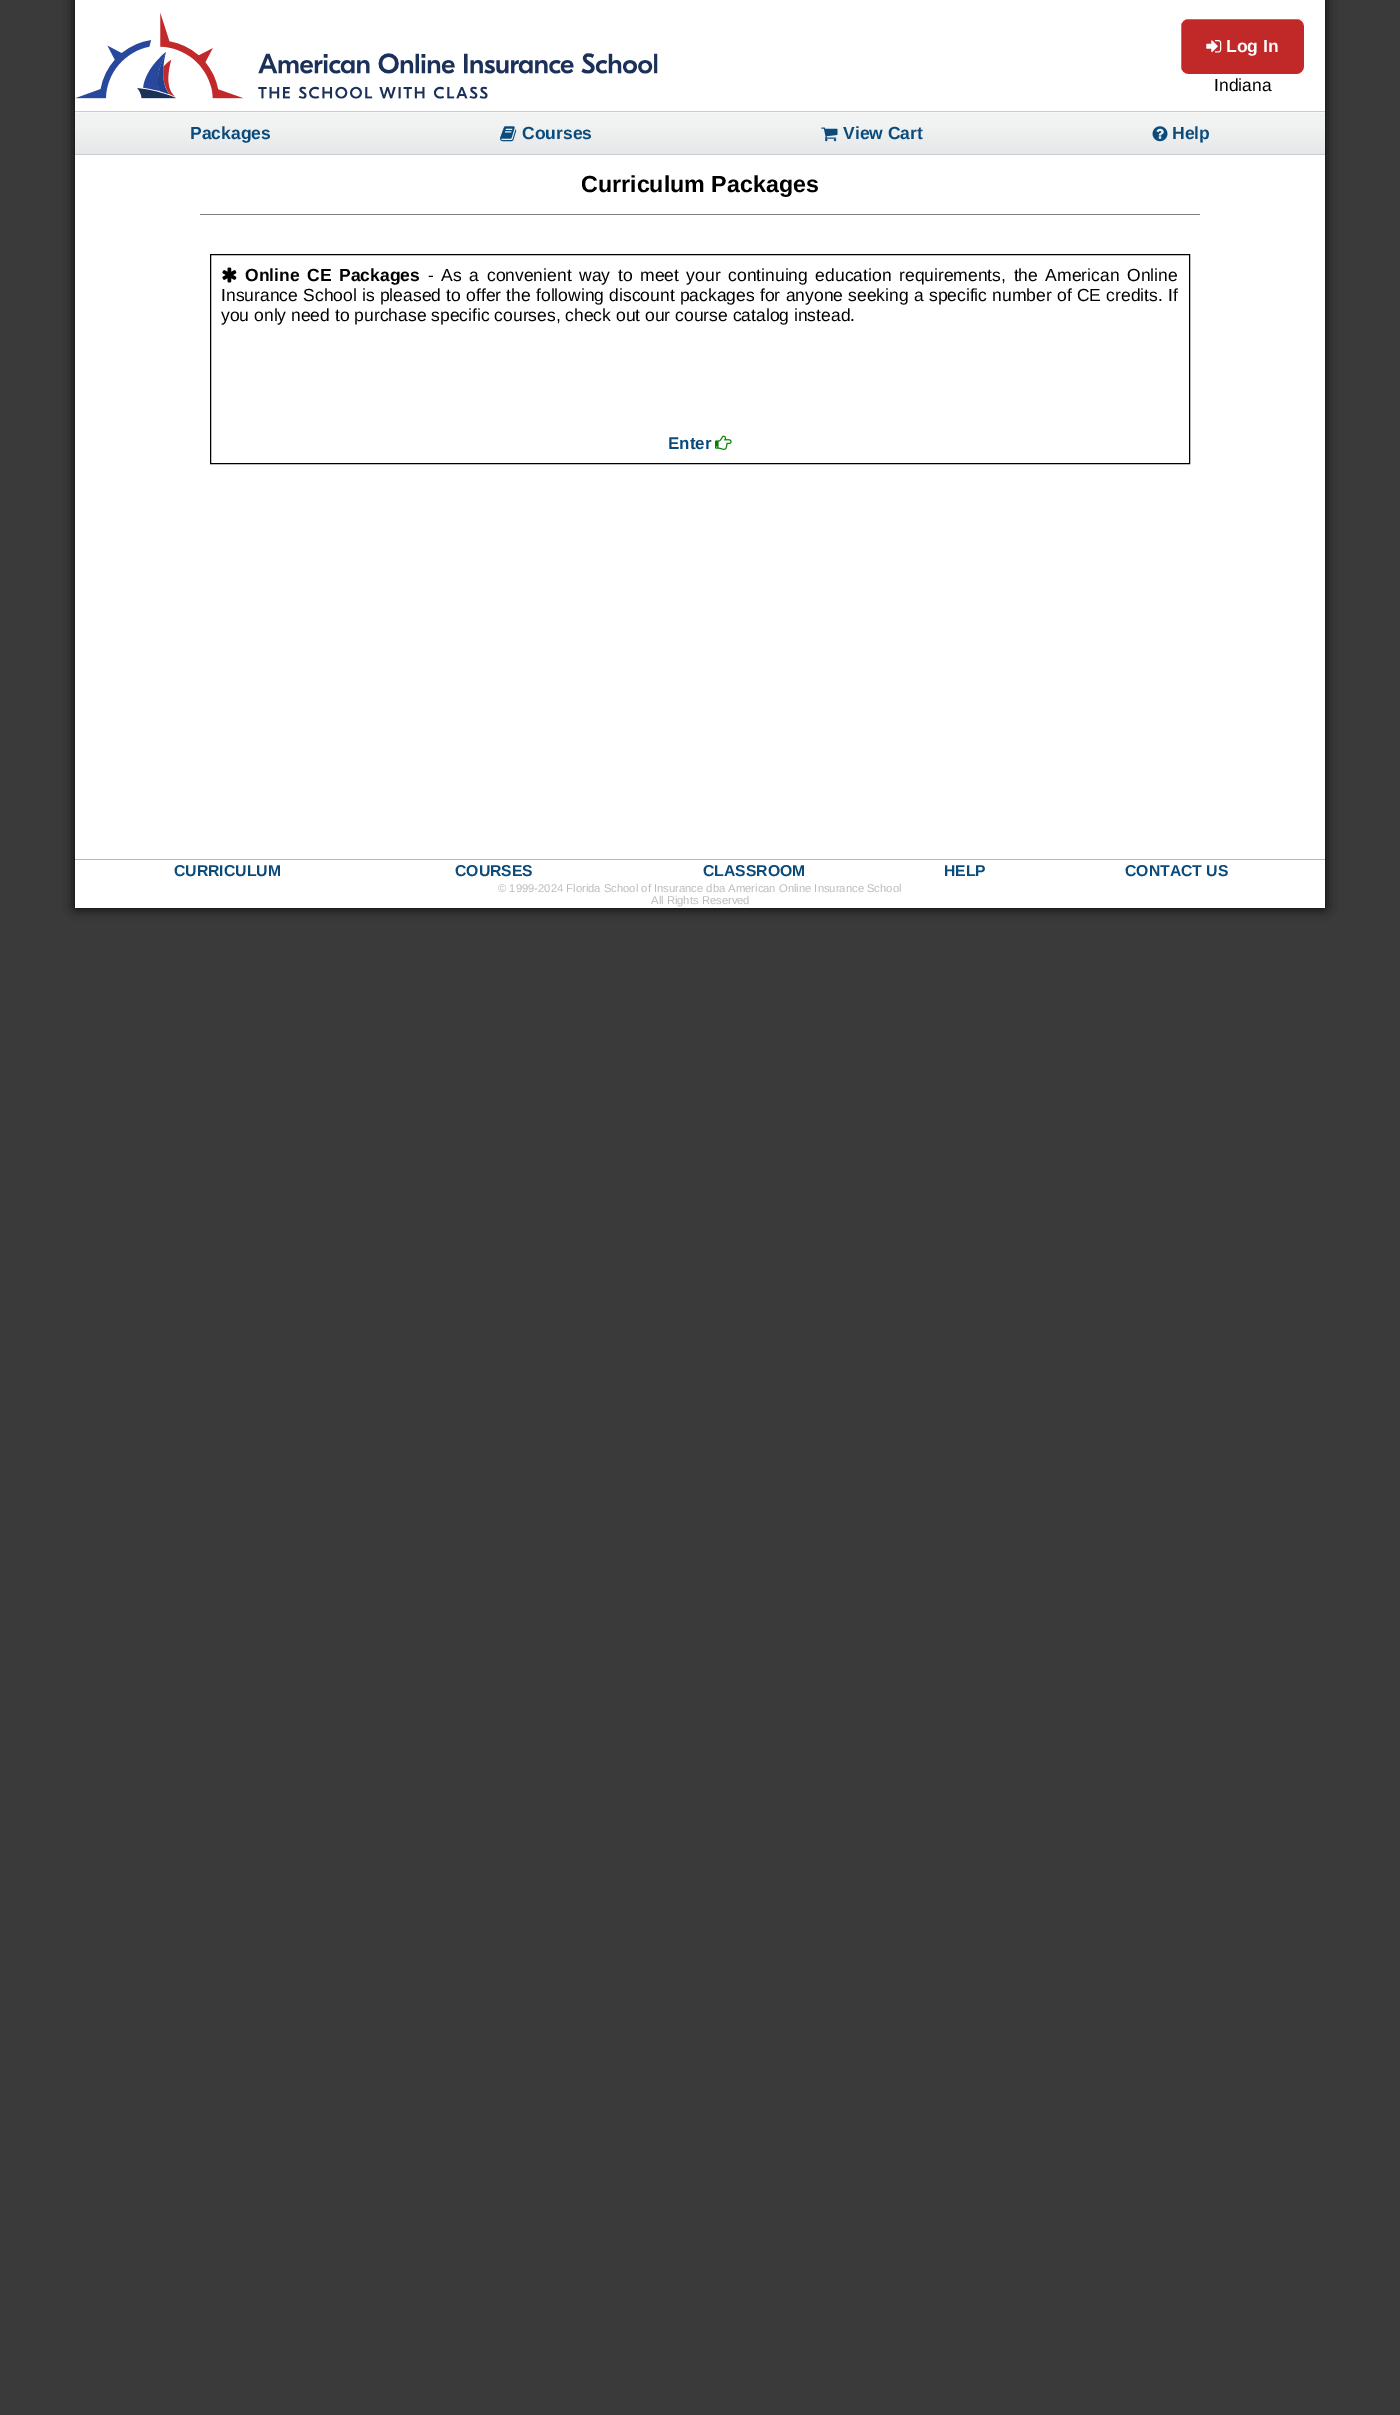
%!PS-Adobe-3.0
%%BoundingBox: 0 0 1400 2415
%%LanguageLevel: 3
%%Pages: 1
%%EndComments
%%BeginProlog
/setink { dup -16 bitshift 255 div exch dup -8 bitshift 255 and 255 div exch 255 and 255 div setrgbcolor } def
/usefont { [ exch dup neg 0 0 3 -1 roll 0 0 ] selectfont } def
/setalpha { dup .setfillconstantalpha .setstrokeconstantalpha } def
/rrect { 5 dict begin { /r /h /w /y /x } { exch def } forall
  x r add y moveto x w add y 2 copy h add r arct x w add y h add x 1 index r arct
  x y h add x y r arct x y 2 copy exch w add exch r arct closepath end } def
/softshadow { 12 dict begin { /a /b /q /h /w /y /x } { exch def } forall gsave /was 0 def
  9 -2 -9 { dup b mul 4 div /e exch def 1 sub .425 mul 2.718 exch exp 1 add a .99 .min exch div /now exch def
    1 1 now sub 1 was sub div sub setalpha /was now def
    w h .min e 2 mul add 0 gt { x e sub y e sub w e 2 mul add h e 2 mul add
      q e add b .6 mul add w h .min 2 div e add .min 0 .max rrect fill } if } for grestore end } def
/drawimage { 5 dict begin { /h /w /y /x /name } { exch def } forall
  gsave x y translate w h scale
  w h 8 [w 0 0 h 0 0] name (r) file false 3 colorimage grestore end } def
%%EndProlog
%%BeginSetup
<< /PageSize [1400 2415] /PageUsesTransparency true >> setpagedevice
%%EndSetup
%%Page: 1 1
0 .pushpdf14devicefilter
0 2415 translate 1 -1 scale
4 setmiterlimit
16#3A3A3A setink
0 0 1400 2415 rectfill
16#000000 setink
75 0 1250 908 0 6 1 softshadow
16#FFFFFF setink
75 0 1250 908 rectfill
(img1.raw) 75 13 583 86 drawimage
16#C12929 setink
1180.5 18.5 124 56 7.5 rrect gsave fill grestore
16#FFFFFF setink
stroke
(img2.raw) 1206 40 16 13 drawimage
/LiberationSans-Bold 17.5 usefont
1226 52 moveto (Log In) show
/LiberationSans-Regular 17.5 usefont
16#000000 setink
1214 91 moveto (Indiana) show
(img3.raw) 75 112 1250 42 drawimage
16#CCCCCC setink
75 111 1250 1 rectfill
75 154 1250 1 rectfill
/LiberationSans-Bold 17.5 usefont
16#0A4B7C setink
190 139 moveto (Packages) show
(img4.raw) 500 126 17 16 drawimage
522 139 moveto (Courses) show
(img5.raw) 821 127 17 15 drawimage
843 139 moveto (View Cart) show
(img6.raw) 1152 126 16 16 drawimage
1172 139 moveto (Help) show
/LiberationSans-Bold 23.25 usefont
16#000000 setink
581 192 moveto (Curriculum Packages) show
16#808080 setink
200 214 1000 1 rectfill
16#000000 setink
210.5 254.5 979 209 rectstroke
(img7.raw) 222 267 15 16 drawimage
/LiberationSans-Bold 17.5 usefont
245 281 moveto 2.75 0 32 (Online CE Packages) widthshow
/LiberationSans-Regular 17.5 usefont
428 281 moveto 2.75 0 32 (- As a convenient way to meet your continuing education requirements, the American Online) widthshow
221 301 moveto 0.4 0 32 (Insurance School is pleased to offer the following discount packages for anyone seeking a specific number of CE credits. If) widthshow
221 321 moveto (you only need to purchase specific courses, check out our course catalog instead.) show
/LiberationSans-Bold 17 usefont
16#0A4B7C setink
668 449 moveto (Enter) show
(img8.raw) 715 435 17 15 drawimage
16#BBBBBB setink
75 859 1250 1 rectfill
/LiberationSans-Bold 15.75 usefont
16#0A4B7C setink
[
    [(CURRICULUM) 174 876]
    [(COURSES) 455 876]
    [(CLASSROOM) 703 876]
    [(HELP) 944 876]
    [(CONTACT US) 1125 876]
] { aload pop moveto show } forall
/LiberationSans-Regular 11.25 usefont
16#BBBBBB setink
498 892 moveto (© 1999-2024 Florida School of Insurance dba American Online Insurance School) show
651 904 moveto (All Rights Reserved) show
.poppdf14devicefilter showpage
%%EOF
